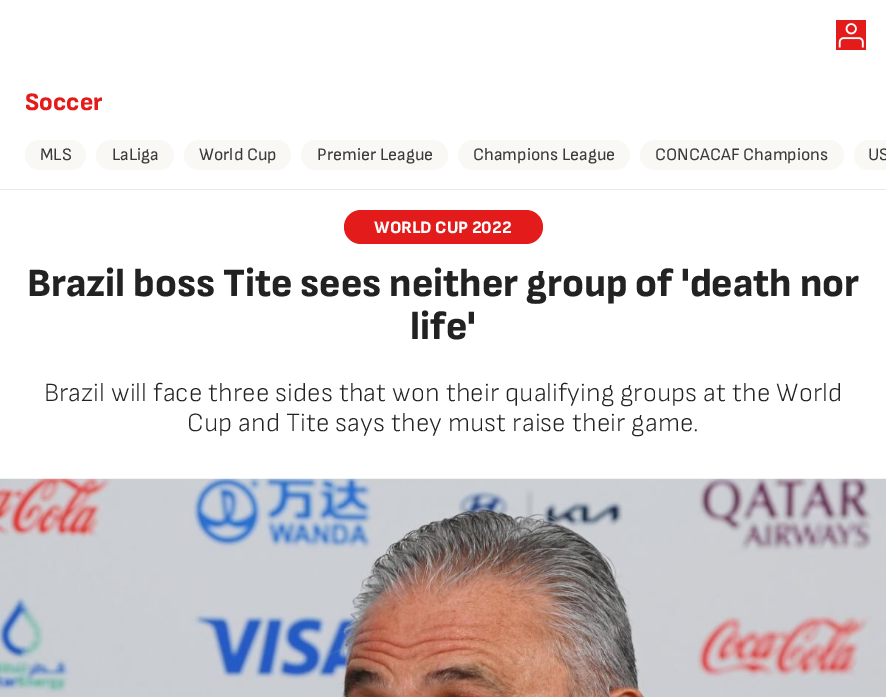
%!PS-Adobe-3.0
%%BoundingBox: 0 0 886 697
%%LanguageLevel: 3
%%Pages: 1
%%EndComments
%%BeginProlog
/setink { dup -16 bitshift 255 div exch dup -8 bitshift 255 and 255 div exch 255 and 255 div setrgbcolor } def
/usefont { [ exch dup neg 0 0 3 -1 roll 0 0 ] selectfont } def
/rrect { 5 dict begin { /r /h /w /y /x } { exch def } forall
  x r add y moveto x w add y 2 copy h add r arct x w add y h add x 1 index r arct
  x y h add x y r arct x y 2 copy exch w add exch r arct closepath end } def
/drawimage { 5 dict begin { /h /w /y /x /name } { exch def } forall
  gsave x y translate w h scale
  w h 8 [w 0 0 h 0 0] name (r) file false 3 colorimage grestore end } def
%%EndProlog
%%BeginSetup
<< /PageSize [886 697] >> setpagedevice
%%EndSetup
%%Page: 1 1
0 697 translate 1 -1 scale
4 setmiterlimit
16#FFFFFF setink
0 0 886 697 rectfill
16#E41B1B setink
836 20 30 30 rectfill
(img1.raw) 838 23 26 25 drawimage
/SofiaSans-ExtraBold 25 usefont
25 110 moveto (Soccer) show
16#FAF8F4 setink
25 140 61 30 15 rrect fill
/SofiaSans-Regular 17.5 usefont
16#3A3A3A setink
40 160 moveto (MLS) show
16#FAF8F4 setink
96 140 78 30 15 rrect fill
16#3A3A3A setink
112 160 moveto (LaLiga) show
16#FAF8F4 setink
184 140 107 30 15 rrect fill
16#3A3A3A setink
199 160 moveto (World Cup) show
16#FAF8F4 setink
301 140 147 30 15 rrect fill
16#3A3A3A setink
317 160 moveto (Premier League) show
16#FAF8F4 setink
458 140 172 30 15 rrect fill
16#3A3A3A setink
473 160 moveto (Champions League) show
16#FAF8F4 setink
640 140 204 30 15 rrect fill
16#3A3A3A setink
655 160 moveto (CONCACAF Champions) show
16#FAF8F4 setink
869 140 moveto 886 140 lineto 886 170 lineto 869 170 lineto 860.5 170 854 163.5 854 155 curveto 854 146.5 860.5 140 869 140 curveto closepath fill
16#3A3A3A setink
868 160 moveto (US) show
16#E9E9E9 setink
0 189 886 1 rectfill
16#E41B1B setink
344 210 199 34 17 rrect fill
/SofiaSans-ExtraBold 17.5 usefont
16#FFFFFF setink
374 233 moveto (WORLD CUP 2022) show
/SofiaSans-ExtraBold 40 usefont
16#222222 setink
27 296 moveto (Brazil boss Tite sees neither group of 'death nor) show
410 339 moveto (life') show
/SofiaSans-Light 26.25 usefont
44 401 moveto (Brazil will face three sides that won their qualifying groups at the World) show
187 431 moveto (Cup and Tite says they must raise their game.) show
(img2.raw) 0 478 886 219 drawimage
showpage
%%EOF
